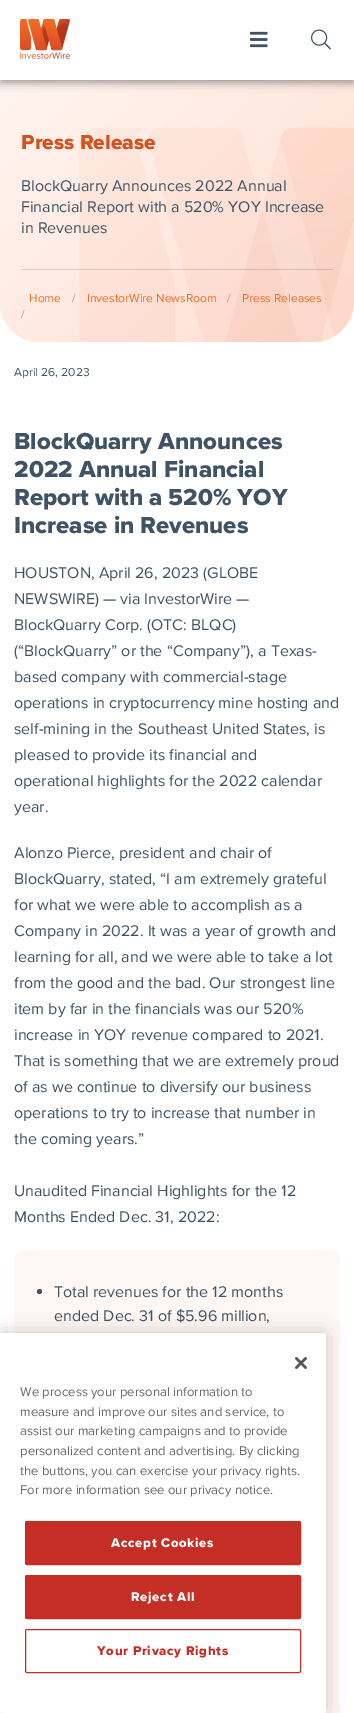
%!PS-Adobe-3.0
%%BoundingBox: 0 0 354 1713
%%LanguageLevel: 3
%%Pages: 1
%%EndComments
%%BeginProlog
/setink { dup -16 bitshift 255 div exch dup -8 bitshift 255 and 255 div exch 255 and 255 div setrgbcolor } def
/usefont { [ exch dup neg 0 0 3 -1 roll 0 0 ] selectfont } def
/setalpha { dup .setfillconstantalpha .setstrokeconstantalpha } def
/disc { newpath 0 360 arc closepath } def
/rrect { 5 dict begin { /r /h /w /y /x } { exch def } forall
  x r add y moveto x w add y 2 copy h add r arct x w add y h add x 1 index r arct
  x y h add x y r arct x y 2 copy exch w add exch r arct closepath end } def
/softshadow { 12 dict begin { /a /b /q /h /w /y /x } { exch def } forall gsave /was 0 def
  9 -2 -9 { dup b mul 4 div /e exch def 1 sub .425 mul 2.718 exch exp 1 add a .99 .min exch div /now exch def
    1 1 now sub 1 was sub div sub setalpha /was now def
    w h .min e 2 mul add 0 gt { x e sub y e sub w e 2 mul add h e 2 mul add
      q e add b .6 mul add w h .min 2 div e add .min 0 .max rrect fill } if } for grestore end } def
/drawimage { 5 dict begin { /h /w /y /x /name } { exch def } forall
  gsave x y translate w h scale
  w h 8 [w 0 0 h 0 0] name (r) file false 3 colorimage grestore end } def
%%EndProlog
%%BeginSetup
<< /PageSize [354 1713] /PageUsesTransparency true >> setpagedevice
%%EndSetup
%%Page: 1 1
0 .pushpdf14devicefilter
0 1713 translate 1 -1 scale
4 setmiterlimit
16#FFFFFF setink
0 0 354 1713 rectfill
gsave 0 0 moveto 354 0 lineto 354 302 lineto 354 324 336 342 314 342 curveto 40 342 lineto 18 342 0 324 0 302 curveto closepath clip newpath
<< /ShadingType 2 /ColorSpace /DeviceRGB /Coords [3 -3 351 345] /Extend [true true] /Function << /FunctionType 2 /Domain [0 1] /C0 [1 0.969 0.957] /C1 [1 0.871 0.82] /N 1 >> >> shfill grestore
16#000000 setink
0 4 354 80 0 4 0.28 softshadow
0 0 354 80 0 2 0.14 softshadow
16#FFFFFF setink
0 0 354 80 rectfill
(img1.raw) 20 19 50 40 drawimage
(img2.raw) 250 31 18 17 drawimage
(img3.raw) 311 29 20 21 drawimage
(img4.raw) 79 127 275 215 drawimage
/ProximaNova-ExtraBold 21 usefont
16#D45121 setink
21 149 moveto (Press Release) show
/ProximaNova-Regular 16 usefont
16#3F5364 setink
[
    [(BlockQuarry Announces 2022 Annual) 21 191]
    [(Financial Report with a 520% YOY Increase) 21 212]
    [(in Revenues) 21 233]
] { aload pop moveto show } forall
0.2 setalpha
21 269 312 1 rectfill
/ProximaNova-Regular 12 usefont
1 setalpha
16#F36C23 setink
29 302 moveto (Home) show
16#9F9FA3 setink
72 302 moveto (/) show
16#F36C23 setink
87 302 moveto (InvestorWire NewsRoom) show
16#9E989A setink
227 302 moveto (/) show
16#F36C23 setink
242 302 moveto (Press Releases) show
16#9F9FA3 setink
21 318 moveto (/) show
16#3F5364 setink
14 376 moveto (April 26, 2023) show
/ProximaNova-ExtraBold 24 usefont
[
    [(BlockQuarry Announces) 14 449]
    [(2022 Annual Financial) 14 477]
    [(Report with a 520% YOY) 14 505]
    [(Increase in Revenues) 14 533]
] { aload pop moveto show } forall
/ProximaNova-Regular 16 usefont
[
    [(HOUSTON, April 26, 2023 \(GLOBE) 14 578]
    [(NEWSWIRE\) — via InvestorWire —) 14 604]
    [(BlockQuarry Corp. \(OTC: BLQC\)) 14 630]
    [(\(“BlockQuarry” or the “Company”\), a Texas-) 14 656]
    [(based company with commercial-stage) 14 682]
    [(operations in cryptocurrency mine hosting and) 14 708]
    [(self-mining in the Southeast United States, is) 14 734]
    [(pleased to provide its financial and) 14 760]
    [(operational highlights for the 2022 calendar) 14 786]
    [(year.) 14 812]
    [(Alonzo Pierce, president and chair of) 14 858]
    [(BlockQuarry, stated, “I am extremely grateful) 14 884]
    [(for what we were able to accomplish as a) 14 910]
    [(Company in 2022. It was a year of growth and) 14 936]
    [(learning for all, and we were able to take a lot) 14 962]
    [(from the good and the bad. Our strongest line) 14 988]
    [(item by far in the financials was our 520%) 14 1014]
    [(increase in YOY revenue compared to 2021.) 14 1040]
    [(That is something that we are extremely proud) 14 1066]
    [(of as we continue to diversify our business) 14 1092]
    [(operations to try to increase that number in) 14 1118]
    [(the coming years.”) 14 1144]
    [(Unaudited Financial Highlights for the 12) 14 1196]
    [(Months Ended Dec. 31, 2022:) 14 1222]
] { aload pop moveto show } forall
16#FFF7F4 setink
14 1250 326 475 12 rrect fill
16#3F5364 setink
39.5 1291.5 2.5 disc fill
54 1297 moveto (Total revenues for the 12 months) show
54 1321 moveto (ended Dec. 31 of $5.96 million,) show
16#000000 setink
0 1333 326 380 2.5 9 0.2 softshadow
16#FFFFFF setink
0 1333 326 380 2.5 rrect fill
(img5.raw) 295 1357 12 12 drawimage
/ProximaNova-Regular 13.1 usefont
16#696969 setink
[
    [(We process your personal information to) 20 1396]
    [(measure and improve our sites and service, to) 20 1416]
    [(assist our marketing campaigns and to provide) 20 1435]
    [(personalized content and advertising. By clicking) 20 1455]
    [(the buttons, you can exercise your privacy rights.) 20 1475]
    [(For more information see our privacy notice.) 20 1494]
] { aload pop moveto show } forall
16#C42E24 setink
25.5 1521.5 275 43 1.5 rrect gsave fill grestore
stroke
/ProximaNova-ExtraBold 13.1 usefont
16#FFFFFF setink
111 1547 moveto 0.7 0 (Accept Cookies) ashow
16#C42E24 setink
25.5 1575.5 275 43 1.5 rrect gsave fill grestore
stroke
16#FFFFFF setink
131 1601 moveto 0.7 0 (Reject All) ashow
16#C42E24 setink
25.5 1629.5 275 43 1.5 rrect stroke
97 1655 moveto 0.7 0 (Your Privacy Rights) ashow
.poppdf14devicefilter showpage
%%EOF
